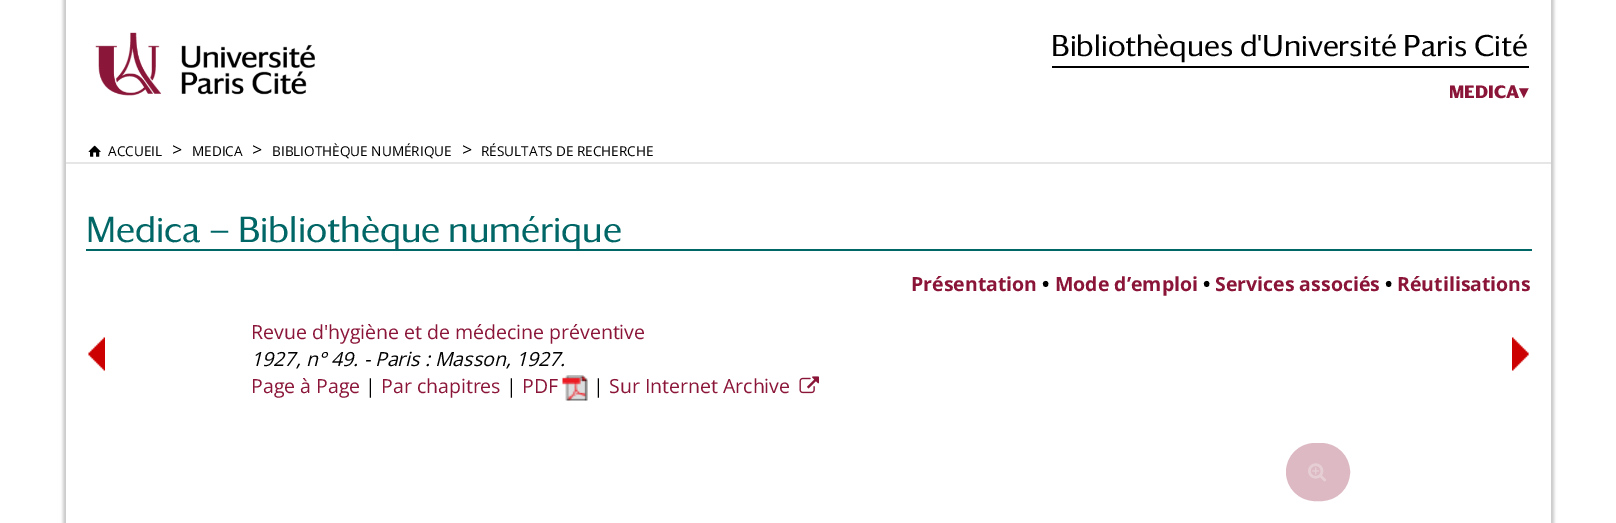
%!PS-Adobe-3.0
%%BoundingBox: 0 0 1616 523
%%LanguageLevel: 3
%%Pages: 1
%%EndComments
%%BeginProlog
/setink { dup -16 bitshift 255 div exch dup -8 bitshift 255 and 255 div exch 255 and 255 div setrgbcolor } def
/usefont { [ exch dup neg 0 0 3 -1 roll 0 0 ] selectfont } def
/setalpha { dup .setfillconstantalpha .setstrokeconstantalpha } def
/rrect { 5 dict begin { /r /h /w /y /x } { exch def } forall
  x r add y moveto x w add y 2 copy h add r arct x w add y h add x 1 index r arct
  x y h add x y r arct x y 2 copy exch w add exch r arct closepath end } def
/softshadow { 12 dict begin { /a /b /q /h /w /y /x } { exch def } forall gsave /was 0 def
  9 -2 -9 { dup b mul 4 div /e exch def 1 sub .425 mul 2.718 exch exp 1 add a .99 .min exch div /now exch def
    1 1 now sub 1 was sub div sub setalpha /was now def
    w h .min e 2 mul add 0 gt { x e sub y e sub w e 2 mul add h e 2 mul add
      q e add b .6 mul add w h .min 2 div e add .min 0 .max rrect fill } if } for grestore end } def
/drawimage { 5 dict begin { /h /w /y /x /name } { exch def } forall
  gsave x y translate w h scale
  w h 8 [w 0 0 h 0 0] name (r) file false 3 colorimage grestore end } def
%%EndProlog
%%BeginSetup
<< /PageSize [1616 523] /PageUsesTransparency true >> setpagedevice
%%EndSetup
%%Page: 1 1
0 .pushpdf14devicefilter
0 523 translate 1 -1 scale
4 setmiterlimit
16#FFFFFF setink
0 0 1616 523 rectfill
gsave
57 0 moveto 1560 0 lineto 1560 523 lineto 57 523 lineto closepath 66 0 moveto 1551 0 lineto 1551 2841 lineto 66 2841 lineto closepath eoclip newpath
16#444444 setink
63 -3 1491 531 0 1.5 0.3 softshadow
grestore
16#E6E6E6 setink
66 162 1485 2 rectfill
(img1.raw) 95 32 220 64 drawimage
/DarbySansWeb-Regular 29.25 usefont
16#000000 setink
1051 56 moveto (Bibliothèques d'Université Paris Cité) show
1052 66 477 2 rectfill
/DarbySansWeb-Bold 17.5 usefont
16#8A1538 setink
1449 98 moveto (MEDICA) show
/DejaVuSans-Bold 18 usefont
1519 98 moveto (▾) show
(img2.raw) 88 145 13 12 drawimage
/OpenSans-Regular 13.6 usefont
16#000000 setink
108 156 moveto (ACCUEIL) show
/OpenSans-Regular 18 usefont
172 156 moveto (>) show
/OpenSans-Regular 13.6 usefont
192 156 moveto (MEDICA) show
/OpenSans-Regular 18 usefont
252 156 moveto (>) show
/OpenSans-Regular 13.6 usefont
272 156 moveto (BIBLIOTHÈQUE NUMÉRIQUE) show
/OpenSans-Regular 18 usefont
462 156 moveto (>) show
/OpenSans-Regular 13.6 usefont
481 156 moveto (RÉSULTATS DE RECHERCHE) show
16#006666 setink
86 249 1446 2 rectfill
/DarbySansWeb-Regular 35.1 usefont
86 242 moveto (Medica — Bibliothèque numérique) show
/OpenSans-Bold 19.5 usefont
16#8A1538 setink
911 291 moveto (Présentation) show
16#000000 setink
1042 291 moveto (•) show
16#8A1538 setink
1055 291 moveto (Mode d’emploi) show
16#000000 setink
1203 291 moveto (•) show
16#8A1538 setink
1215 291 moveto (Services associés) show
16#000000 setink
1385 291 moveto (•) show
16#8A1538 setink
1397 291 moveto (Réutilisations) show
(img3.raw) 88 337 17 34 drawimage
/OpenSans-Regular 19.5 usefont
251 339 moveto (Revue d'hygiène et de médecine préventive) show
/OpenSans-Italic 19.5 usefont
16#000000 setink
251 366 moveto (1927, n° 49. - Paris : Masson, 1927.) show
/OpenSans-Regular 19.5 usefont
16#8A1538 setink
251 393 moveto (Page à Page) show
16#000000 setink
365 393 moveto (|) show
16#8A1538 setink
381 393 moveto (Par chapitres) show
16#000000 setink
506 393 moveto (|) show
16#8A1538 setink
522 393 moveto (PDF) show
(img4.raw) 562 375 26 26 drawimage
16#000000 setink
593 393 moveto (|) show
16#8A1538 setink
609 393 moveto (Sur Internet Archive) show
(img5.raw) 799 376 20 18 drawimage
(img6.raw) 1512 337 17 34 drawimage
16#DCB9C3 setink
1287.5 444.5 61 55 27.5 rrect gsave fill grestore
3 setlinewidth
stroke
(img7.raw) 1308 463 18 19 drawimage
.poppdf14devicefilter showpage
%%EOF
